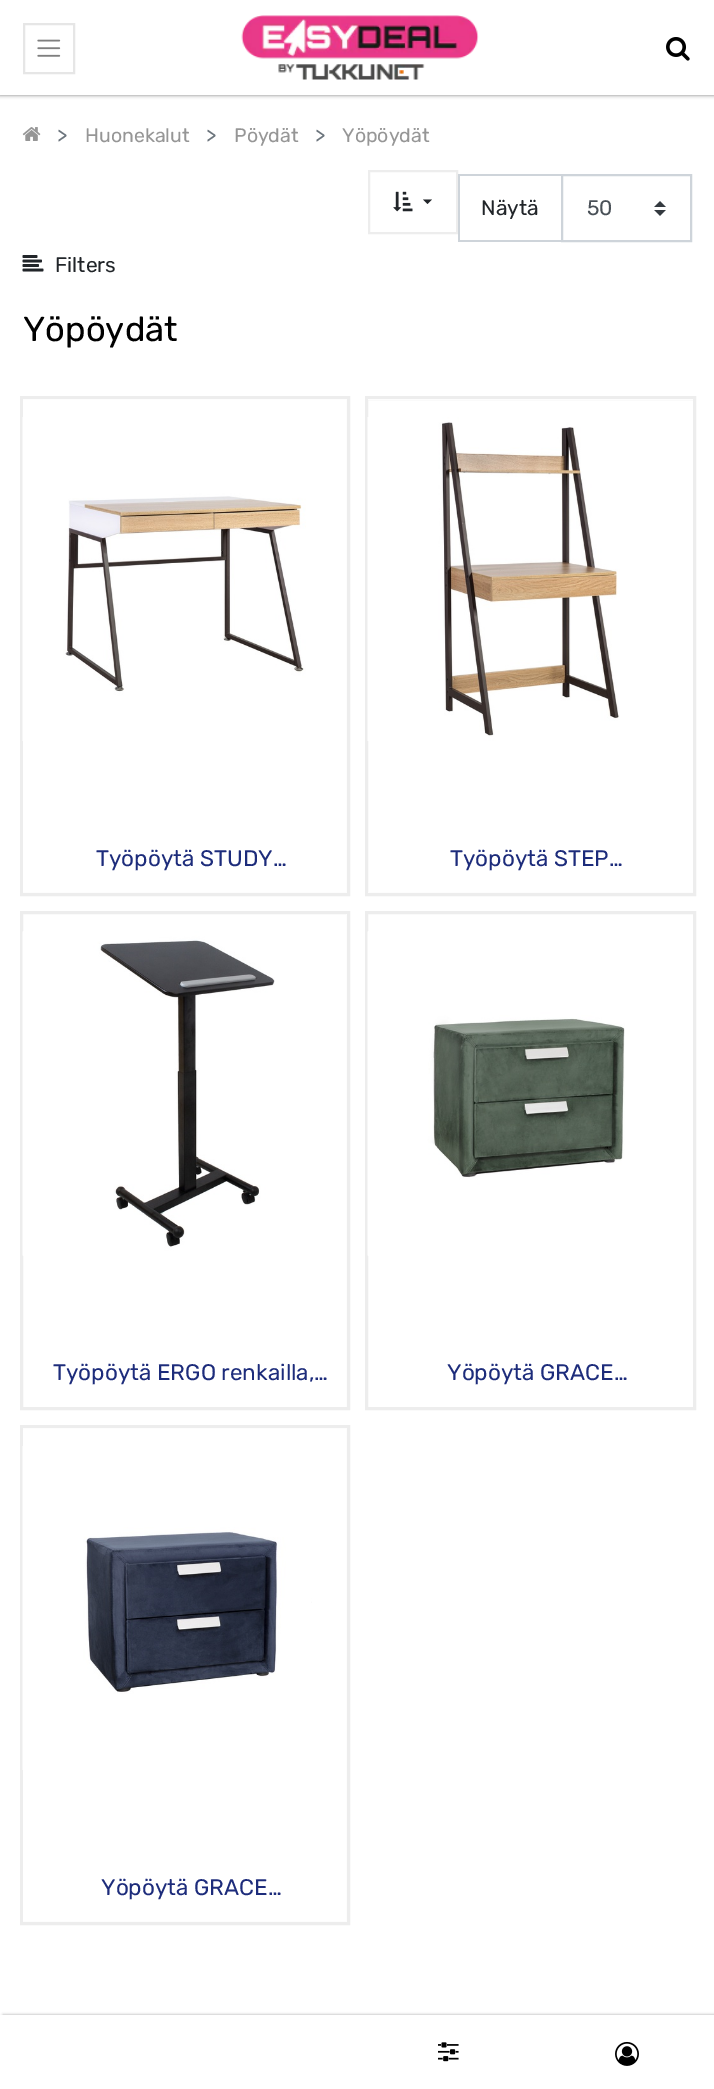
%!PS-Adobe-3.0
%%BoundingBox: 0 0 714 2089
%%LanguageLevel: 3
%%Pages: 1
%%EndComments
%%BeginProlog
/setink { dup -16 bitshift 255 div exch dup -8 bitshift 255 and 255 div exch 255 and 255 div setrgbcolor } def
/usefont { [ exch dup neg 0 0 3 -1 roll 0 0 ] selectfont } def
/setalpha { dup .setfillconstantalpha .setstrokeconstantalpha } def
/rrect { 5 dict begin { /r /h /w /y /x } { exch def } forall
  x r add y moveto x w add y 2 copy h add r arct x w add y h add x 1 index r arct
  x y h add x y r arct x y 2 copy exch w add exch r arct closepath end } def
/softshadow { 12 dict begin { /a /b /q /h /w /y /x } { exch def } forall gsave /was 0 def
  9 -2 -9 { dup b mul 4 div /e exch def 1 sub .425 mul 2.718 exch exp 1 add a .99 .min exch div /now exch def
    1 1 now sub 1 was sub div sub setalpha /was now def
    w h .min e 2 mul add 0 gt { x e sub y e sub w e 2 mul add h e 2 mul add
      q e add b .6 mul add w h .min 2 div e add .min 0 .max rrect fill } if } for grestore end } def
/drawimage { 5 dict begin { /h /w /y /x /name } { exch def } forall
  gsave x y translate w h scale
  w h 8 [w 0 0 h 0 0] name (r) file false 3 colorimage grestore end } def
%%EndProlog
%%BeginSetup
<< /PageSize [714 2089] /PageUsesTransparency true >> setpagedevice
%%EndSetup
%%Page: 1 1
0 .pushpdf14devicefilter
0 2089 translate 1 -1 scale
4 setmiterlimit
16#FFFFFF setink
0 0 714 2089 rectfill
16#757575 setink
0 0 714 95 0 2 1 softshadow
16#FFFFFF setink
0 0 714 95 rectfill
16#E6E6E6 setink
2 setlinewidth
24 24 50 49 rectstroke
(img1.raw) 37 39 24 18 drawimage
(img2.raw) 241 15 238 65 drawimage
(img3.raw) 666 37 24 24 drawimage
16#ABABAB setink
3 2015 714 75 0 1.5 1 softshadow
16#FFFFFF setink
0 2015 714 74 rectfill
(img4.raw) 438 2042 21 20 drawimage
(img5.raw) 615 2041 24 25 drawimage
(img6.raw) 22 127 19 14 drawimage
/Rubik-Light 21 usefont
16#6C757D setink
57 142 moveto (>) show
/Rubik-Light 19.5 usefont
16#969696 setink
85 142 moveto (Huonekalut) show
/Rubik-Light 21 usefont
16#6C757D setink
206 142 moveto (>) show
/Rubik-Light 19.5 usefont
16#969696 setink
234 142 moveto (Pöydät) show
/Rubik-Light 21 usefont
16#6C757D setink
315 142 moveto (>) show
/Rubik-Light 19.5 usefont
16#969696 setink
342 142 moveto (Yöpöydät) show
16#EDEDED setink
369 171 88 62 rectstroke
(img7.raw) 393 191 20 21 drawimage
16#212529 setink
423 199.5 moveto 432 199.5 lineto 427.5 204 lineto closepath fill
[
    [458 174 103 2 16#CED4DA]
    [458 240 103 2 16#CED4DA]
    [458 174 2 68 16#CED4DA]
] { aload pop setink rectfill } forall
/Rubik-Light 21 usefont
16#212529 setink
481 215 moveto (Näytä) show
(img8.raw) 654 201 12 15 drawimage
16#CED4DA setink
562 175 129 66 rectstroke
16#495057 setink
587 215 moveto (50) show
(img9.raw) 22 255 22 17 drawimage
16#212529 setink
55 272 moveto (Filters) show
/Rubik-Light 34.5 usefont
16#000000 setink
23 341 moveto (Yöpöydät) show
16#EDEDED setink
21 397 328 498 rectstroke
22 399 325 494 rectstroke
0.9 setalpha
16#FFFFFF setink
23 399 324 360 rectfill
1 setalpha
(img10.raw) 22 417 284 324 drawimage
0.9 setalpha
23 759 324 134 rectfill
/Rubik-Light 22.5 usefont
1 setalpha
16#1D2C7B setink
96 866 moveto (Työpöytä STUDY…) show
16#EDEDED setink
366 397 329 498 rectstroke
367 399 327 494 rectstroke
0.9 setalpha
16#FFFFFF setink
368 399 325 1 rectfill
1 setalpha
(img11.raw) 367 417 253 324 drawimage
0.9 setalpha
368 892 325 1 rectfill
1 setalpha
16#1D2C7B setink
450 866 moveto (Työpöytä STEP…) show
16#EDEDED setink
21 912 328 497 rectstroke
22 913 325 495 rectstroke
0.9 setalpha
16#FFFFFF setink
346 914 1 360 rectfill
1 setalpha
(img12.raw) 22 931 253 325 drawimage
0.9 setalpha
346 1274 1 133 rectfill
1 setalpha
16#1D2C7B setink
53 1380 moveto (Työpöytä ERGO renkailla,…) show
16#EDEDED setink
366 912 329 497 rectstroke
367 913 327 495 rectstroke
(img13.raw) 367 931 258 325 drawimage
16#1D2C7B setink
447 1380 moveto (Yöpöytä GRACE…) show
16#EDEDED setink
21 1426 328 498 rectstroke
22 1428 325 494 rectstroke
0.9 setalpha
16#FFFFFF setink
23 1428 324 360 rectfill
1 setalpha
(img14.raw) 22 1446 290 324 drawimage
0.9 setalpha
23 1788 324 134 rectfill
1 setalpha
16#1D2C7B setink
101 1895 moveto (Yöpöytä GRACE…) show
.poppdf14devicefilter showpage
%%EOF
